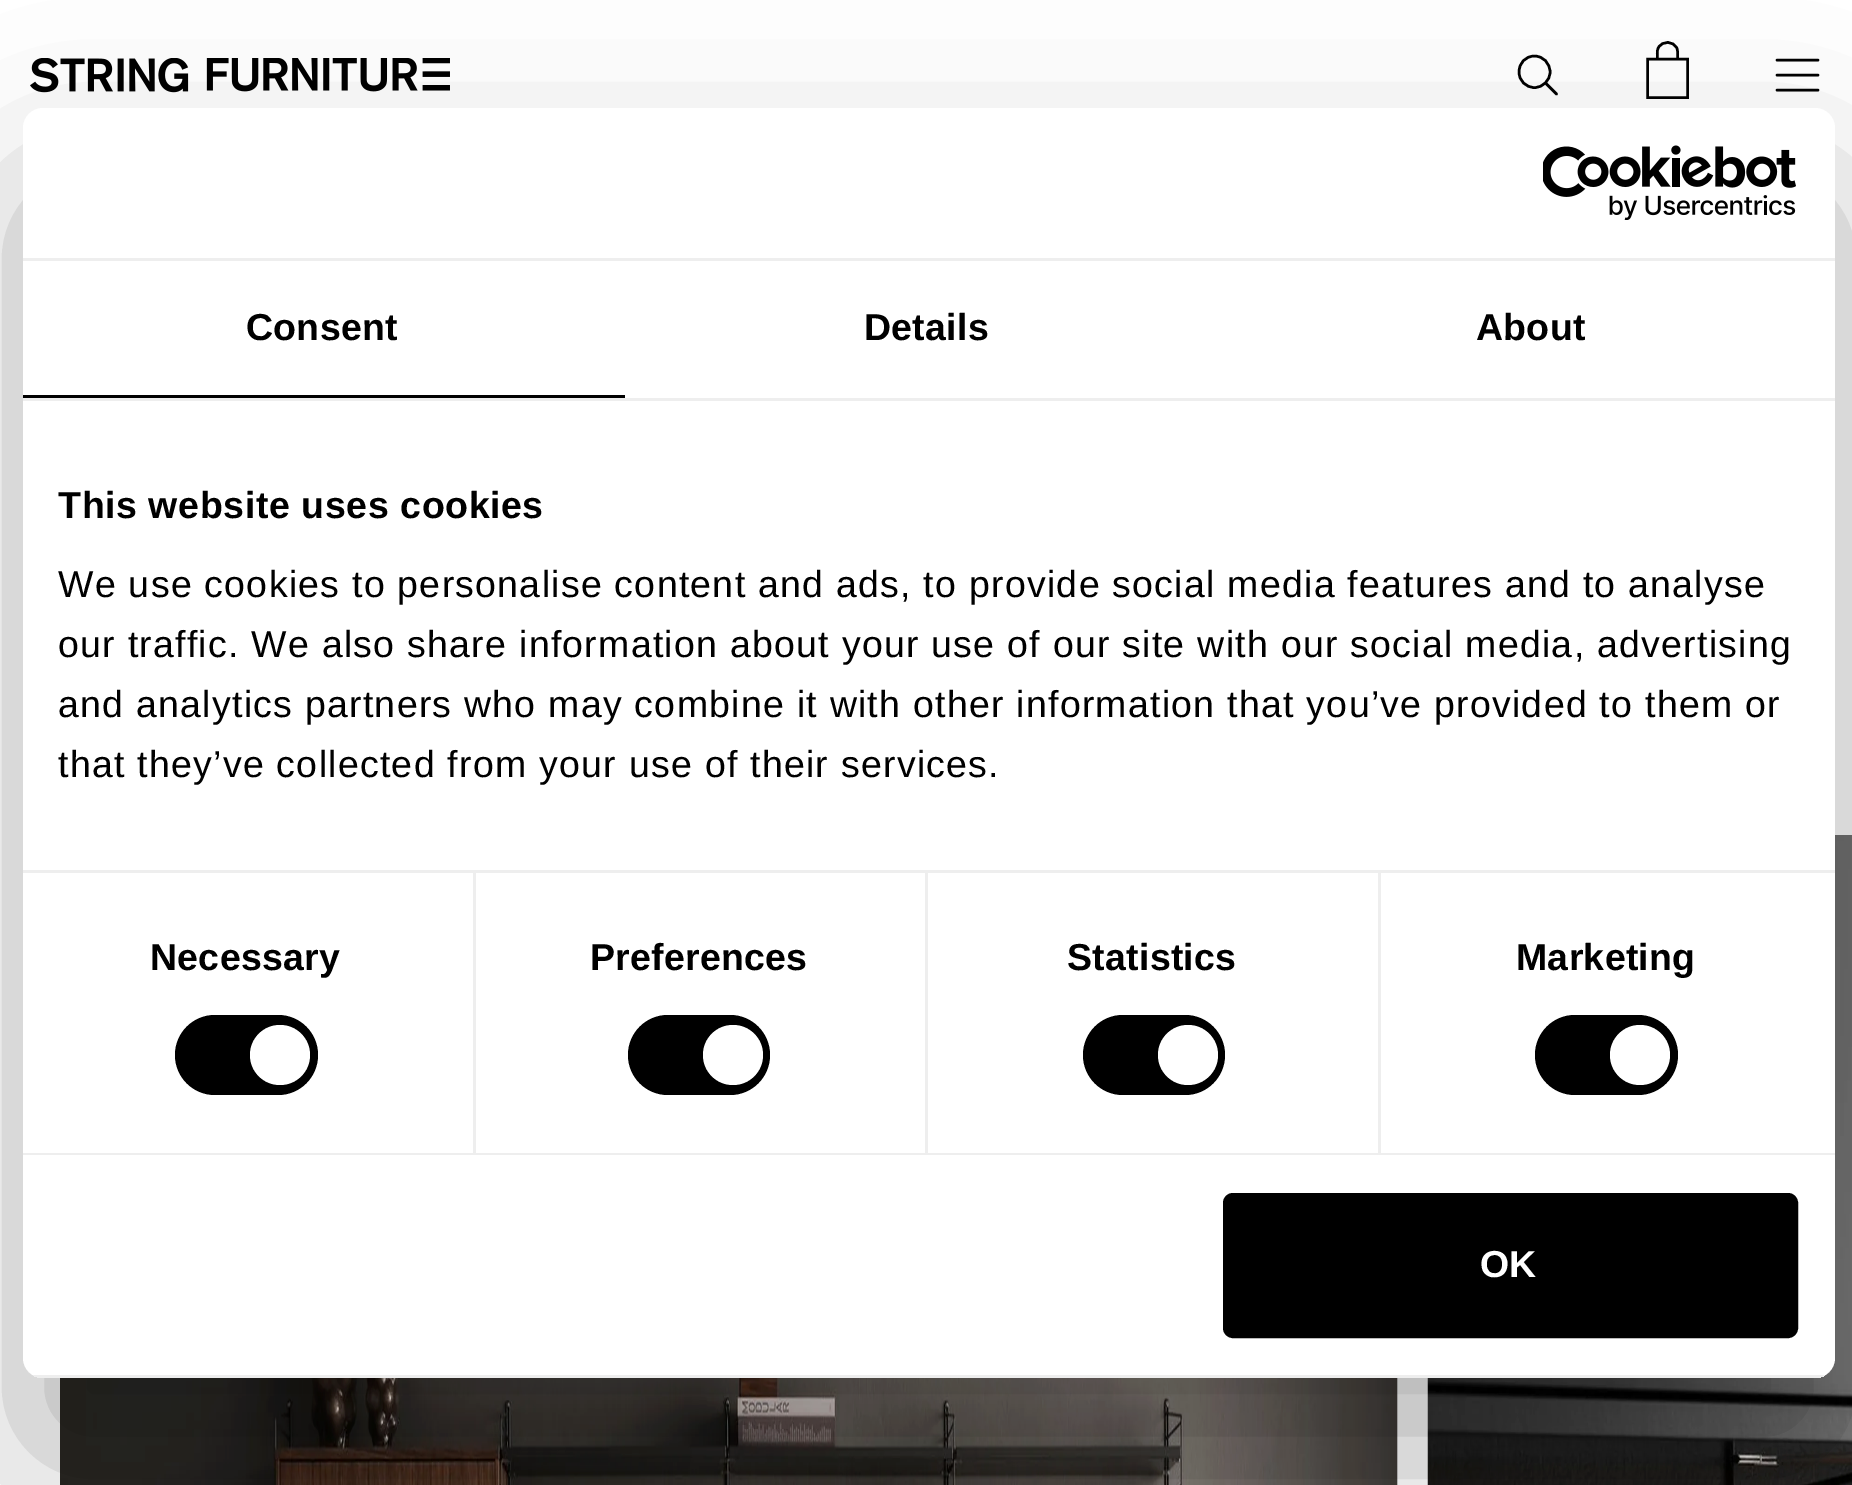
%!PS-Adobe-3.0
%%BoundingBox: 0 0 1852 1485
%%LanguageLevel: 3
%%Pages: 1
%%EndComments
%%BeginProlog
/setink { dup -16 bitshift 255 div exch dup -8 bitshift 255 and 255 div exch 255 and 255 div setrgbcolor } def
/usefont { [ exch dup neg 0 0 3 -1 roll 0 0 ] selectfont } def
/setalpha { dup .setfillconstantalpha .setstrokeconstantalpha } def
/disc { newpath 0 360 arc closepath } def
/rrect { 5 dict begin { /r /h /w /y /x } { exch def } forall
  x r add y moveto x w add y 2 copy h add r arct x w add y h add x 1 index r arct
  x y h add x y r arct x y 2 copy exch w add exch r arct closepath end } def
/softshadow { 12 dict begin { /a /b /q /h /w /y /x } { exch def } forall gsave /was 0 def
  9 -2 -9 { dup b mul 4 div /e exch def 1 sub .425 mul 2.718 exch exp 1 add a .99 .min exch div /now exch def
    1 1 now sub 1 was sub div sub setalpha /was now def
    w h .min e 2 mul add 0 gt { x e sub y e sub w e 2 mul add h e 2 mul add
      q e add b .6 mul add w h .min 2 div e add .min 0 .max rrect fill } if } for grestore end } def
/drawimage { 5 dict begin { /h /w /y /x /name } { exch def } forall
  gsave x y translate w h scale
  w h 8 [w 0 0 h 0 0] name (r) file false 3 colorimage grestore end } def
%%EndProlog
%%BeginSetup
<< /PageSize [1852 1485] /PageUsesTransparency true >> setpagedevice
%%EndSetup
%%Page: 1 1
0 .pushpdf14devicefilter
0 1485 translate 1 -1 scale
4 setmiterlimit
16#FFFFFF setink
0 0 1852 1485 rectfill
(img1.raw) 30 58 420 35 drawimage
16#000000 setink
2.5 setlinewidth
1 setlinecap
1 setlinejoin
1534.5 87.5 moveto 1543 87.5 1550 80.5 1550 72 curveto 1550 63 1543 56 1534.5 56 curveto 1525.5 56 1519 63 1519 72 curveto 1519 80.5 1525.5 87.5 1534.5 87.5 curveto 1545.5 83 moveto 1556.5 94 lineto stroke
0 setlinecap
0 setlinejoin
1647.5 59 moveto 1687.5 59 lineto 1687.5 97.5 lineto 1647.5 97.5 lineto closepath 1657.5 59 moveto 1657.5 55.5 1656.5 51 1658.5 47.5 curveto 1662.5 40.5 1673.5 40.5 1677 48.5 curveto 1678 51.5 1677.5 55.5 1677.5 59 curveto stroke
1 setlinecap
1 setlinejoin
1777 75 moveto 1818 75 lineto 1777 60 moveto 1818 60 lineto 1777 90 moveto 1818 90 lineto stroke
16#F3F3F3 setink
1397 1378 1 107 rectfill
(img2.raw) 60 1378 1338 107 drawimage
(img3.raw) 1427 835 425 650 drawimage
gsave
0 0 moveto 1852 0 lineto 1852 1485 lineto 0 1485 lineto closepath 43 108 moveto 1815 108 lineto 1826 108 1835 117 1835 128 curveto 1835 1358 lineto 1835 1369 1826 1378 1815 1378 curveto 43 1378 lineto 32 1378 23 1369 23 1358 curveto 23 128 lineto 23 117 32 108 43 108 curveto closepath eoclip newpath
16#000000 setink
23 188 1812 1270 20 85 0.3 softshadow
grestore
16#FFFFFF setink
23 108 1812 1270 20 rrect fill
16#EEEEEE setink
23 258 1812 3 rectfill
(img4.raw) 1543 145 253 75 drawimage
23 398 1812 3 rectfill
16#000000 setink
23 395 602 3 rectfill
/LiberationSans-Bold 37.5 usefont
246 340 moveto 0.25 0 (Consent) ashow
864 340 moveto 0.25 0 (Details) ashow
1476 340 moveto 0.25 0 (About) ashow
16#EEEEEE setink
23 870 1812 3 rectfill
16#000000 setink
58 518 moveto 0.6 0 (This website uses cookies) ashow
/LiberationSans-Regular 37.5 usefont
58 597 moveto 1.25 0 (We use cookies to personalise content and ads, to provide social media features and to analyse) ashow
58 657 moveto 1.25 0 (our traffic. We also share information about your use of our site with our social media, advertising) ashow
58 717 moveto 1.25 0 (and analytics partners who may combine it with other information that you’ve provided to them or) ashow
58 777 moveto 1.25 0 (that they’ve collected from your use of their services.) ashow
16#EEEEEE setink
23 1153 1812 2 rectfill
473 873 3 280 rectfill
/LiberationSans-Bold 37.5 usefont
16#000000 setink
150 970 moveto 0.25 0 (Necessary) ashow
175 1015 143 80 40 rrect fill
16#FFFFFF setink
280 1055 30 disc fill
16#EEEEEE setink
925 873 3 280 rectfill
16#000000 setink
590 970 moveto 0.25 0 (Preferences) ashow
628 1015 142 80 40 rrect fill
16#FFFFFF setink
733 1055 30 disc fill
16#EEEEEE setink
1378 873 3 280 rectfill
16#000000 setink
1067 970 moveto 0.25 0 (Statistics) ashow
1083 1015 142 80 40 rrect fill
16#FFFFFF setink
1188 1055 30 disc fill
16#000000 setink
1516 970 moveto 0.25 0 (Marketing) ashow
1535 1015 143 80 40 rrect fill
16#FFFFFF setink
1640 1055 30 disc fill
gsave
23 108 1812 1270 20 rrect clip newpath
16#EEEEEE setink
32 1375 1794 3 rectfill
grestore
16#000000 setink
1225.5 1195.5 570 140 7.5 rrect gsave fill grestore
5 setlinewidth
0 setlinecap
0 setlinejoin
stroke
16#FFFFFF setink
1480 1277 moveto 0.25 0 (OK) ashow
.poppdf14devicefilter showpage
%%EOF
